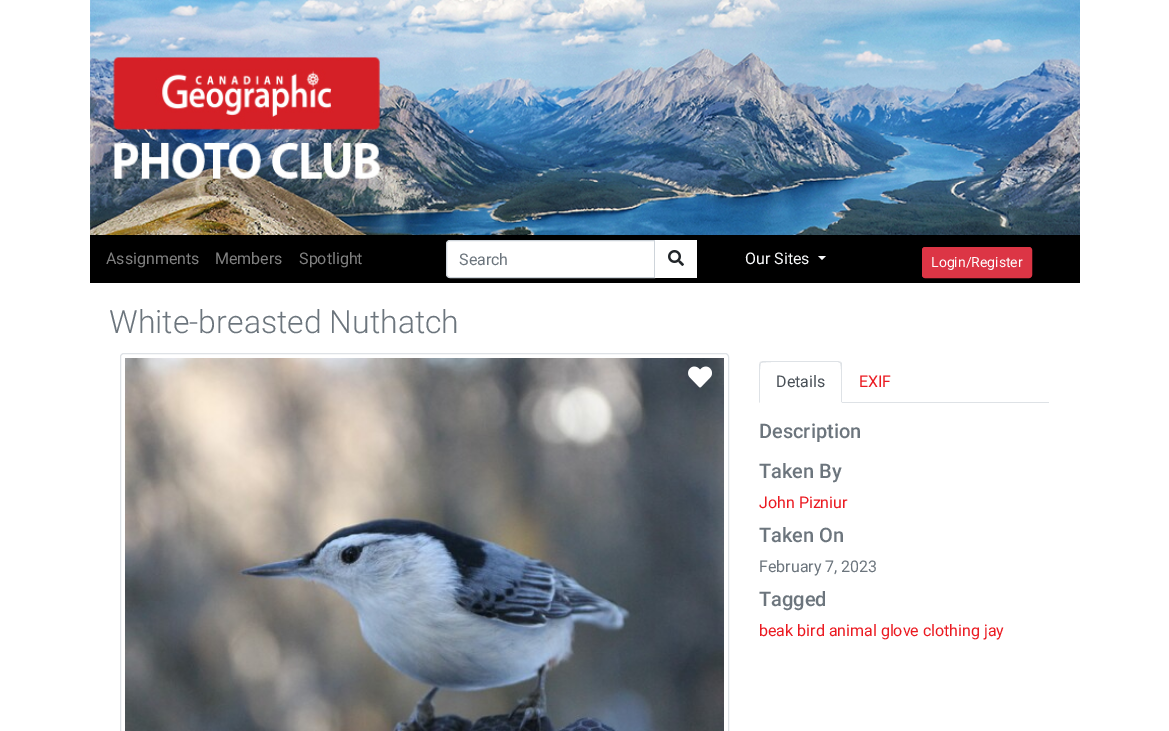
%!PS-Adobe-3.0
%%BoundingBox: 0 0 1169 731
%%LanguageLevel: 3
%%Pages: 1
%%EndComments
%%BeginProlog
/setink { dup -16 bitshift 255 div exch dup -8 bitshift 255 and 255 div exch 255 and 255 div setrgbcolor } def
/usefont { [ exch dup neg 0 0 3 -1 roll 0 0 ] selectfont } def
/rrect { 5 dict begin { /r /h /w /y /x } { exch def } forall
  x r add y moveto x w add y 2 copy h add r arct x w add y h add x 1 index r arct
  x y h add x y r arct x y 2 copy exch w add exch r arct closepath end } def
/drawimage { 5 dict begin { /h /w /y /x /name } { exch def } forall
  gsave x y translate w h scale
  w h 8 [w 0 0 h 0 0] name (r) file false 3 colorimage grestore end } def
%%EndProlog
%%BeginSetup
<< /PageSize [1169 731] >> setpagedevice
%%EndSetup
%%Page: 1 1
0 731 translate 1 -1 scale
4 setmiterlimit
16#FFFFFF setink
0 0 1169 731 rectfill
(img1.raw) 90 0 990 235 drawimage
16#000000 setink
90 235 990 48 rectfill
/Roboto-Regular 16 usefont
16#808080 setink
[
    [(Assignments) 106 264]
    [(Members) 215 264]
    [(Spotlight) 299 264]
] { aload pop moveto show } forall
16#FFFFFF setink
450 240.5 moveto 654.5 240.5 lineto 654.5 277.5 lineto 450 277.5 lineto 448 277.5 446.5 276 446.5 274 curveto 446.5 244 lineto 446.5 242 448 240.5 450 240.5 curveto closepath gsave fill grestore
16#CED4DA setink
stroke
16#6C757D setink
459 265 moveto (Search) show
16#FFFFFF setink
655 240 42 38 rectfill
(img2.raw) 668 250 16 16 drawimage
16#F8F9FA setink
745 264 moveto (Our Sites) show
818 256 moveto 826 256 lineto 822 260 lineto closepath fill
16#DC3545 setink
922.5 247.5 109 30 2.5 rrect gsave fill grestore
stroke
/Roboto-Regular 14 usefont
16#FFFFFF setink
931 267 moveto (Login/Register) show
/Roboto-Light 32 usefont
16#6C757D setink
109 333 moveto (White-breasted Nuthatch) show
16#DEE2E6 setink
120.5 353.5 608 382 3.5 rrect stroke
(img3.raw) 125 358 599 373 drawimage
(img4.raw) 688 366 24 22 drawimage
842 402 207 1 rectfill
763 361 moveto 760 362 lineto 761 363 lineto 763 361 818 362 826 362 curveto 838 362 lineto 840 363 lineto 841 362 lineto 838 361 lineto closepath fill
842 403 moveto 842 365 lineto 842 364 842 363 841 362 curveto 840 363 lineto 842 365 841 397 841 402 curveto closepath fill
16#FFFFFF setink
842 403 moveto 841 402 lineto 760 402 lineto 759 403 lineto closepath fill
16#DEE2E6 setink
759 403 moveto 760 402 lineto 760 397 759 365 761 363 curveto 760 362 lineto 759 365 lineto closepath fill
/Roboto-Regular 16 usefont
16#495057 setink
776 387 moveto (Details) show
16#EB1A21 setink
859 387 moveto (EXIF) show
/Roboto-Medium 20 usefont
16#6C757D setink
759 438 moveto (Description) show
759 478 moveto (Taken By) show
/Roboto-Regular 16 usefont
16#EB1A21 setink
759 508 moveto (John Pizniur) show
/Roboto-Medium 20 usefont
16#6C757D setink
759 542 moveto (Taken On) show
/Roboto-Regular 16 usefont
759 572 moveto (February 7, 2023) show
/Roboto-Medium 20 usefont
759 606 moveto (Tagged) show
/Roboto-Regular 16 usefont
16#EB1A21 setink
759 636 moveto (beak bird animal glove clothing jay) show
showpage
%%EOF
